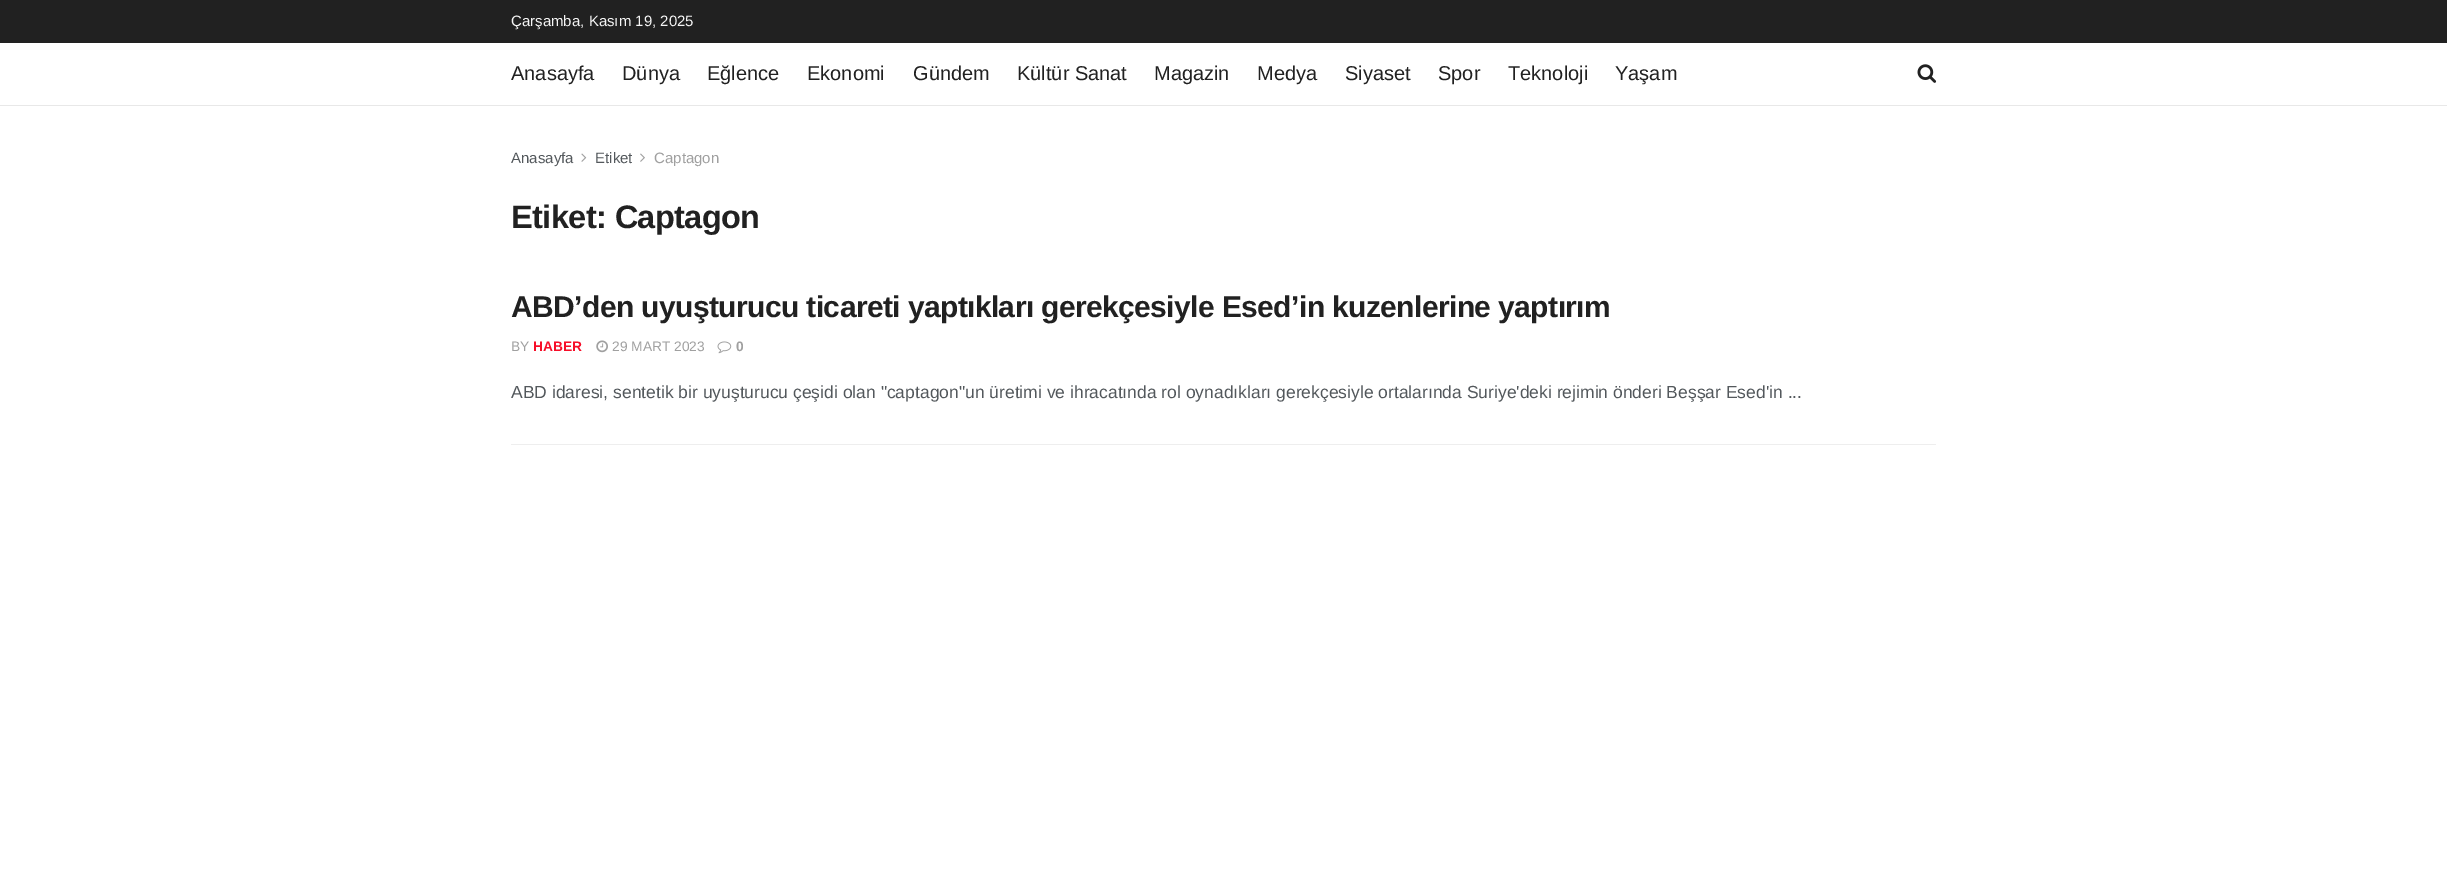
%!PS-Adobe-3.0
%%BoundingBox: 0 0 2447 888
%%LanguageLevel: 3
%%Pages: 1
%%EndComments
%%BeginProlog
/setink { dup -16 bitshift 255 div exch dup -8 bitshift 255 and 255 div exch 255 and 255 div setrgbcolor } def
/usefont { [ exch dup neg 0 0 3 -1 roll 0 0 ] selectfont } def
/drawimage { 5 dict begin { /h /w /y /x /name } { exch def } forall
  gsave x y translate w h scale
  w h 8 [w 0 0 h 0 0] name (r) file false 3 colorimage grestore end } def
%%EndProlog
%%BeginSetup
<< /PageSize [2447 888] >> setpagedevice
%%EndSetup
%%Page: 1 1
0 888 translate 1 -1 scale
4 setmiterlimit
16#FFFFFF setink
0 0 2447 888 rectfill
16#212121 setink
0 0 2447 43 rectfill
/LiberationSans-Regular 15 usefont
16#F5F5F5 setink
511 26 moveto (Çarşamba, Kasım 19, 2025) show
16#E8E8E8 setink
0 105 2447 1 rectfill
/LiberationSans-Regular 20 usefont
16#212121 setink
[
    [(Anasayfa) 511 80]
    [(Dünya) 622 80]
    [(Eğlence) 707 80]
    [(Ekonomi) 807 80]
    [(Gündem) 913 80]
    [(Kültür Sanat) 1017 80]
    [(Magazin) 1154 80]
    [(Medya) 1257 80]
    [(Siyaset) 1345 80]
    [(Spor) 1438 80]
    [(Teknoloji) 1508 80]
    [(Yaşam) 1615 80]
] { aload pop moveto show } forall
(img1.raw) 1917 64 20 19 drawimage
/LiberationSans-Regular 15 usefont
16#53585C setink
511 163 moveto (Anasayfa) show
(img2.raw) 581 153 6 9 drawimage
595 163 moveto (Etiket) show
(img3.raw) 640 153 5 9 drawimage
16#A0A0A0 setink
654 163 moveto (Captagon) show
/LiberationSans-Bold 32.5 usefont
16#212121 setink
511 228 moveto -0.6 0 (Etiket: Captagon) ashow
16#EEEEEE setink
511 444 1425 1 rectfill
/LiberationSans-Bold 30 usefont
16#212121 setink
511 317 moveto -0.6 0 (ABD’den uyuşturucu ticareti yaptıkları gerekçesiyle Esed’in kuzenlerine yaptırım) ashow
/LiberationSans-Regular 13.75 usefont
16#A0A0A0 setink
511 351 moveto (BY) show
/LiberationSans-Bold 13.75 usefont
16#F70D28 setink
533 351 moveto (HABER) show
(img4.raw) 596 340 12 13 drawimage
/LiberationSans-Regular 13.75 usefont
16#A0A0A0 setink
612 351 moveto (29 MART 2023) show
(img5.raw) 717 341 15 13 drawimage
/LiberationSans-Bold 13.75 usefont
736 351 moveto (0) show
/LiberationSans-Regular 17.5 usefont
16#53585C setink
511 398 moveto (ABD idaresi, sentetik bir uyuşturucu çeşidi olan "captagon"un üretimi ve ihracatında rol oynadıkları gerekçesiyle ortalarında Suriye'deki rejimin önderi Beşşar Esed'in ...) show
showpage
%%EOF
